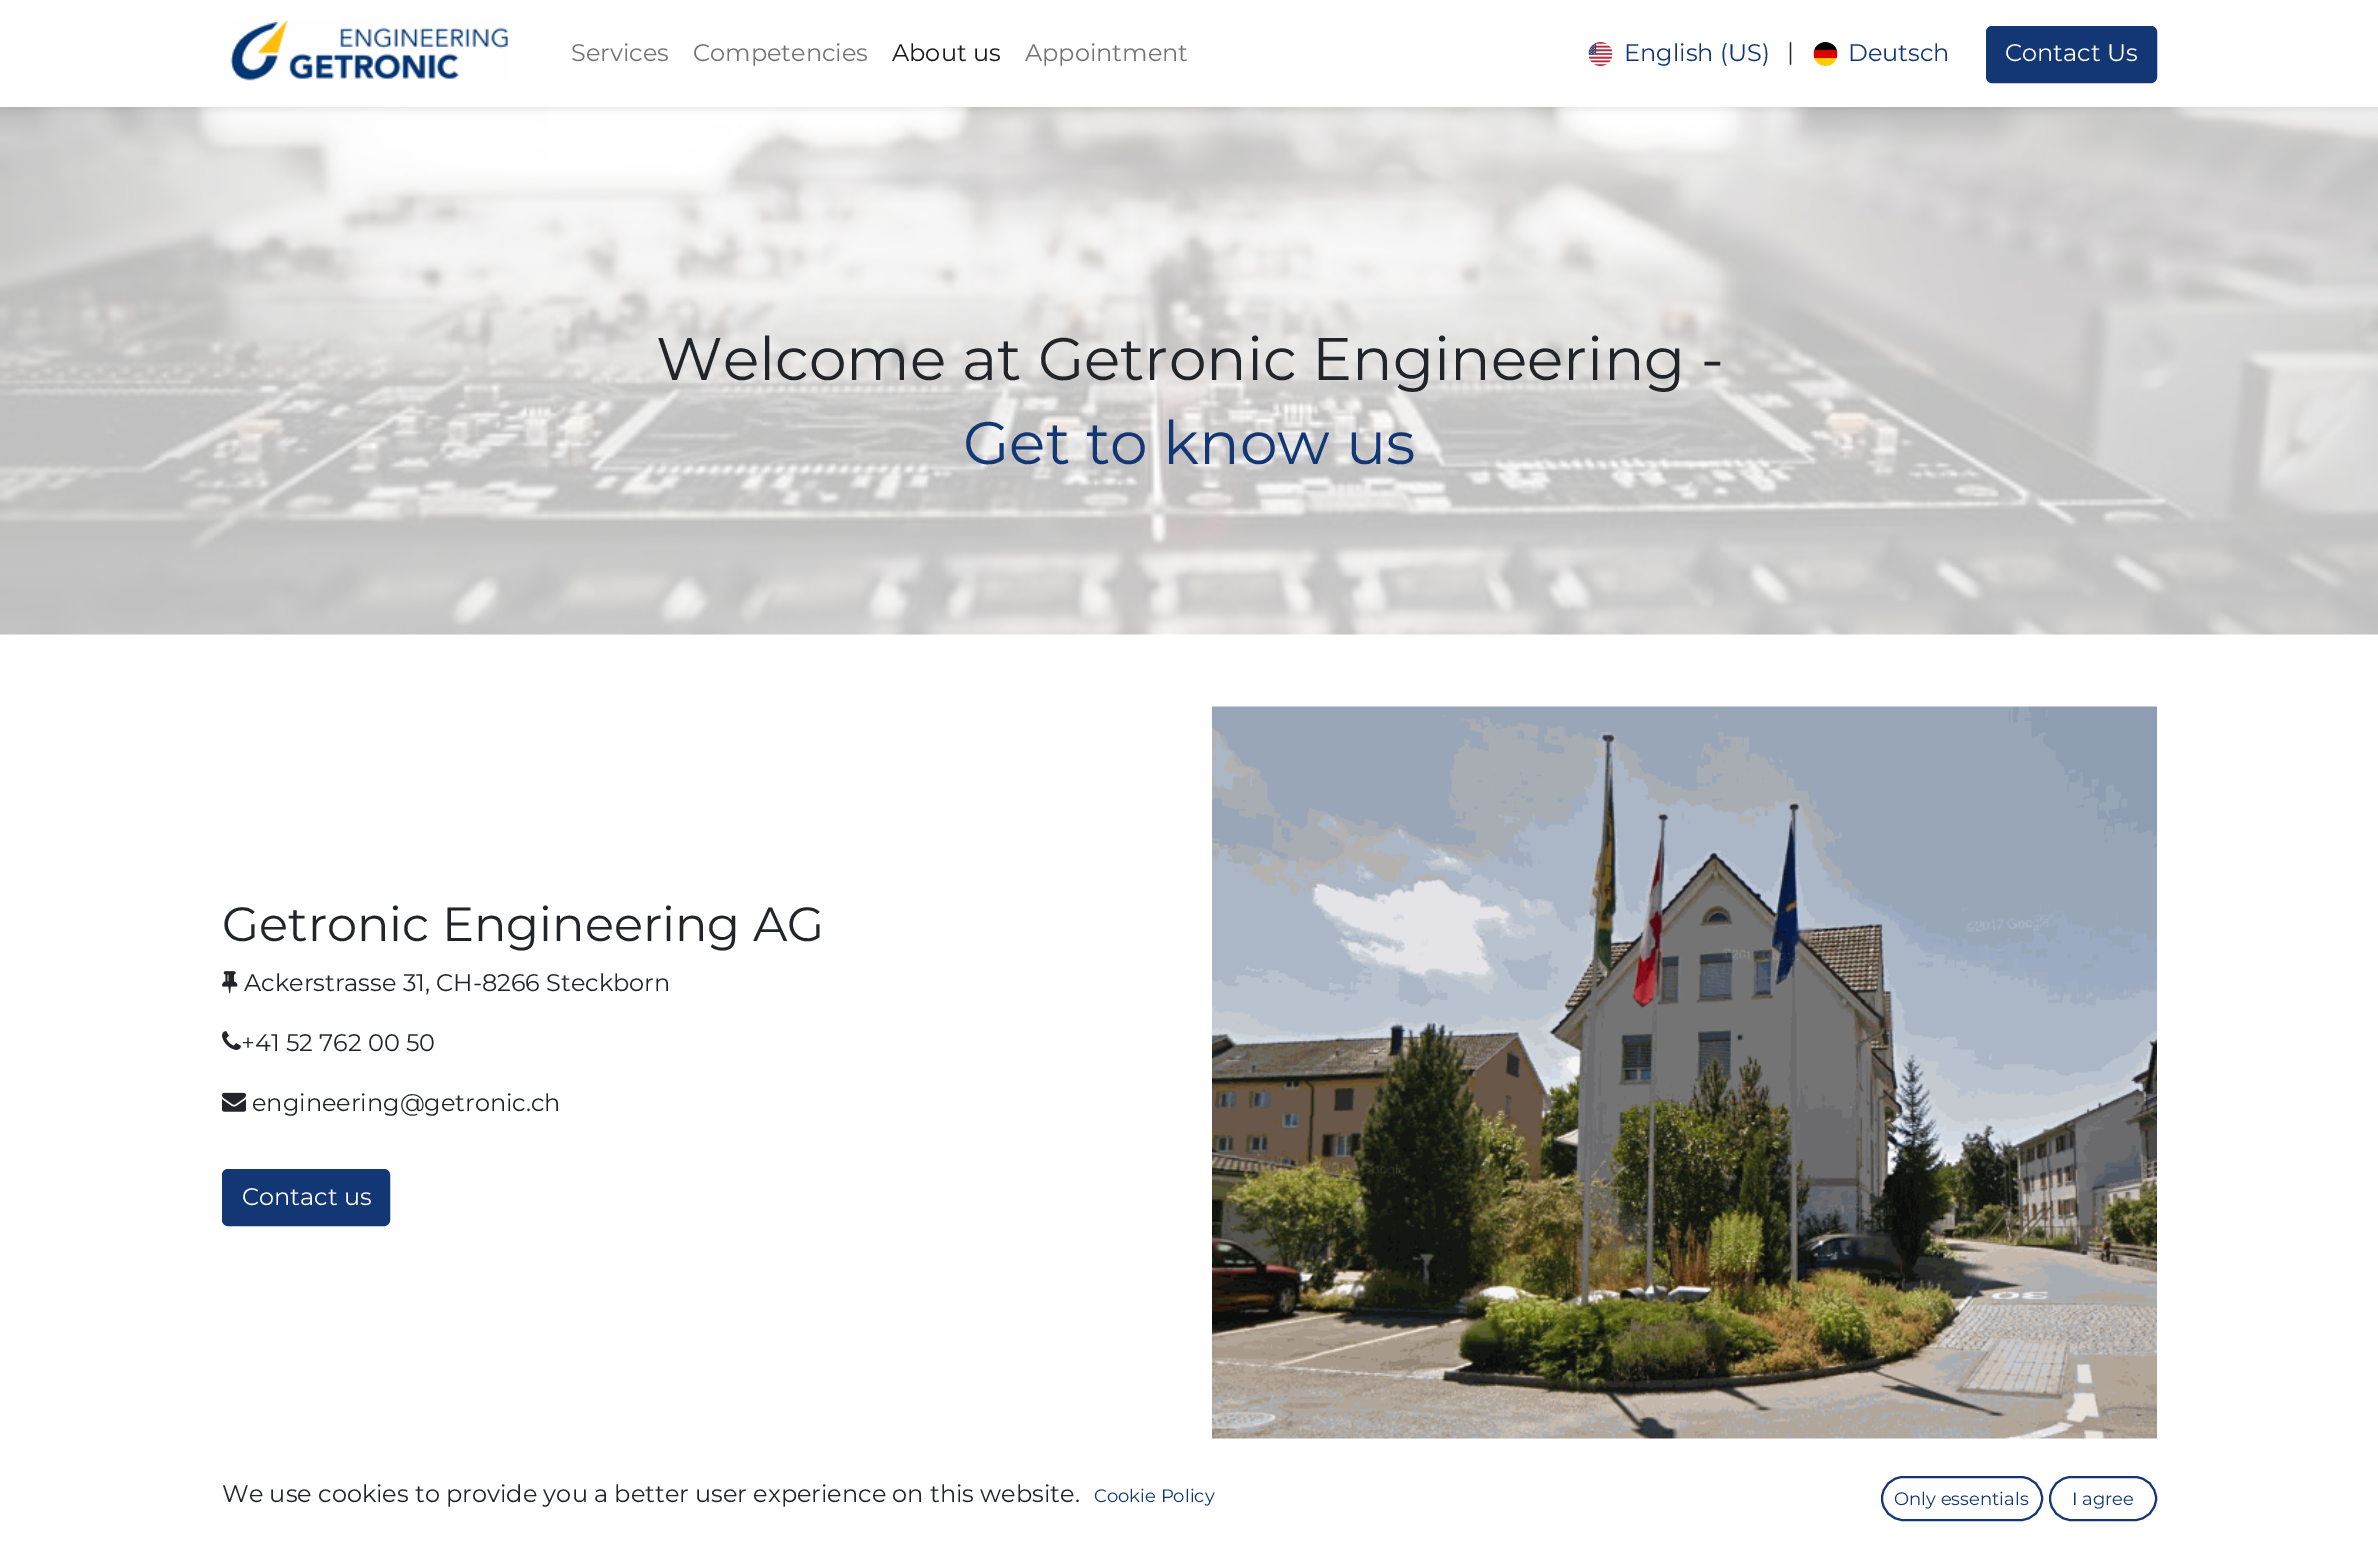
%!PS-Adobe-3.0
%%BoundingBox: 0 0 2378 1545
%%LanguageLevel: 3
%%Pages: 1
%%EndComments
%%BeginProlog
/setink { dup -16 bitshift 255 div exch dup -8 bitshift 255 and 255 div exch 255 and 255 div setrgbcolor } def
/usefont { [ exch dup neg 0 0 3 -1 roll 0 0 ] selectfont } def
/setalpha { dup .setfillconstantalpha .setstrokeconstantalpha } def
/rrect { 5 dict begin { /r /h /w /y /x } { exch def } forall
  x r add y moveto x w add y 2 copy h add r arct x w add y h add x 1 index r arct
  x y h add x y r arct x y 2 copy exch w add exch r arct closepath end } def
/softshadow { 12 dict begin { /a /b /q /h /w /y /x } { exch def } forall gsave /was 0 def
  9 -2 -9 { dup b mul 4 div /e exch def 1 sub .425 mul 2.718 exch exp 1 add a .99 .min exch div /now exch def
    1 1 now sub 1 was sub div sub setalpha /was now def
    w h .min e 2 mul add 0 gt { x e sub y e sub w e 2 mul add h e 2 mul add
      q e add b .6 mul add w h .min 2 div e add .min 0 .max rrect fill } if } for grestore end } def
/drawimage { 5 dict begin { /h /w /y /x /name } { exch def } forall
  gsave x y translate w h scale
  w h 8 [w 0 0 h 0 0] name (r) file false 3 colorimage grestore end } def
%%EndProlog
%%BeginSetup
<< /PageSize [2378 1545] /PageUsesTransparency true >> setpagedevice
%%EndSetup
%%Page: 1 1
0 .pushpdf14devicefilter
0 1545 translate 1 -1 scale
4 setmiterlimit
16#FFFFFF setink
0 0 2378 1545 rectfill
(img4.raw) 0 107 2378 528 drawimage
16#000000 setink
0 3 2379 107 0 3 0.07 softshadow
16#FFFFFF setink
0 0 2378 107 rectfill
(img1.raw) 230 20 278 61 drawimage
/Montserrat-Regular 24 usefont
16#737373 setink
571 61 moveto (Services) show
693 61 moveto (Competencies) show
16#1A1A1A setink
892 61 moveto (About us) show
16#737373 setink
1025 61 moveto (Appointment) show
(img2.raw) 1588 42 25 24 drawimage
16#133775 setink
1624 61 moveto (English \(US\)) show
16#212529 setink
1787 60 moveto (|) show
(img3.raw) 1813 42 25 24 drawimage
16#133775 setink
1848 61 moveto (Deutsch) show
1987 27 169 55 5 rrect gsave fill grestore
2 setlinewidth
stroke
16#FFFFFF setink
2005 61 moveto (Contact Us) show
/Montserrat-Regular 60 usefont
16#212529 setink
656 380 moveto (Welcome at Getronic Engineering -) show
16#133775 setink
963 464 moveto (Get to know us) show
/Montserrat-Regular 48 usefont
16#212529 setink
222 941 moveto (Getronic Engineering AG) show
(img5.raw) 222 971 16 23 drawimage
/Montserrat-Regular 24 usefont
244 991 moveto (Ackerstrasse 31, CH-8266 Steckborn) show
(img6.raw) 222 1031 19 19 drawimage
241 1051 moveto (+41 52 762 00 50) show
(img7.raw) 222 1092 24 20 drawimage
252 1111 moveto (engineering@getronic.ch) show
16#133775 setink
223 1170 166 55 5 rrect gsave fill grestore
stroke
16#FFFFFF setink
242 1205 moveto (Contact us) show
(img8.raw) 1212 706 945 733 drawimage
16#212529 setink
222 1502 moveto (We use cookies to provide you a better user experience on this website.) show
/Montserrat-Regular 18 usefont
16#133775 setink
1094 1502 moveto (Cookie Policy) show
1882 1477 160 43 21.5 rrect stroke
1894 1505 moveto (Only essentials) show
2050 1477 106 43 21.5 rrect stroke
2072 1505 moveto (I agree) show
.poppdf14devicefilter showpage
%%EOF
